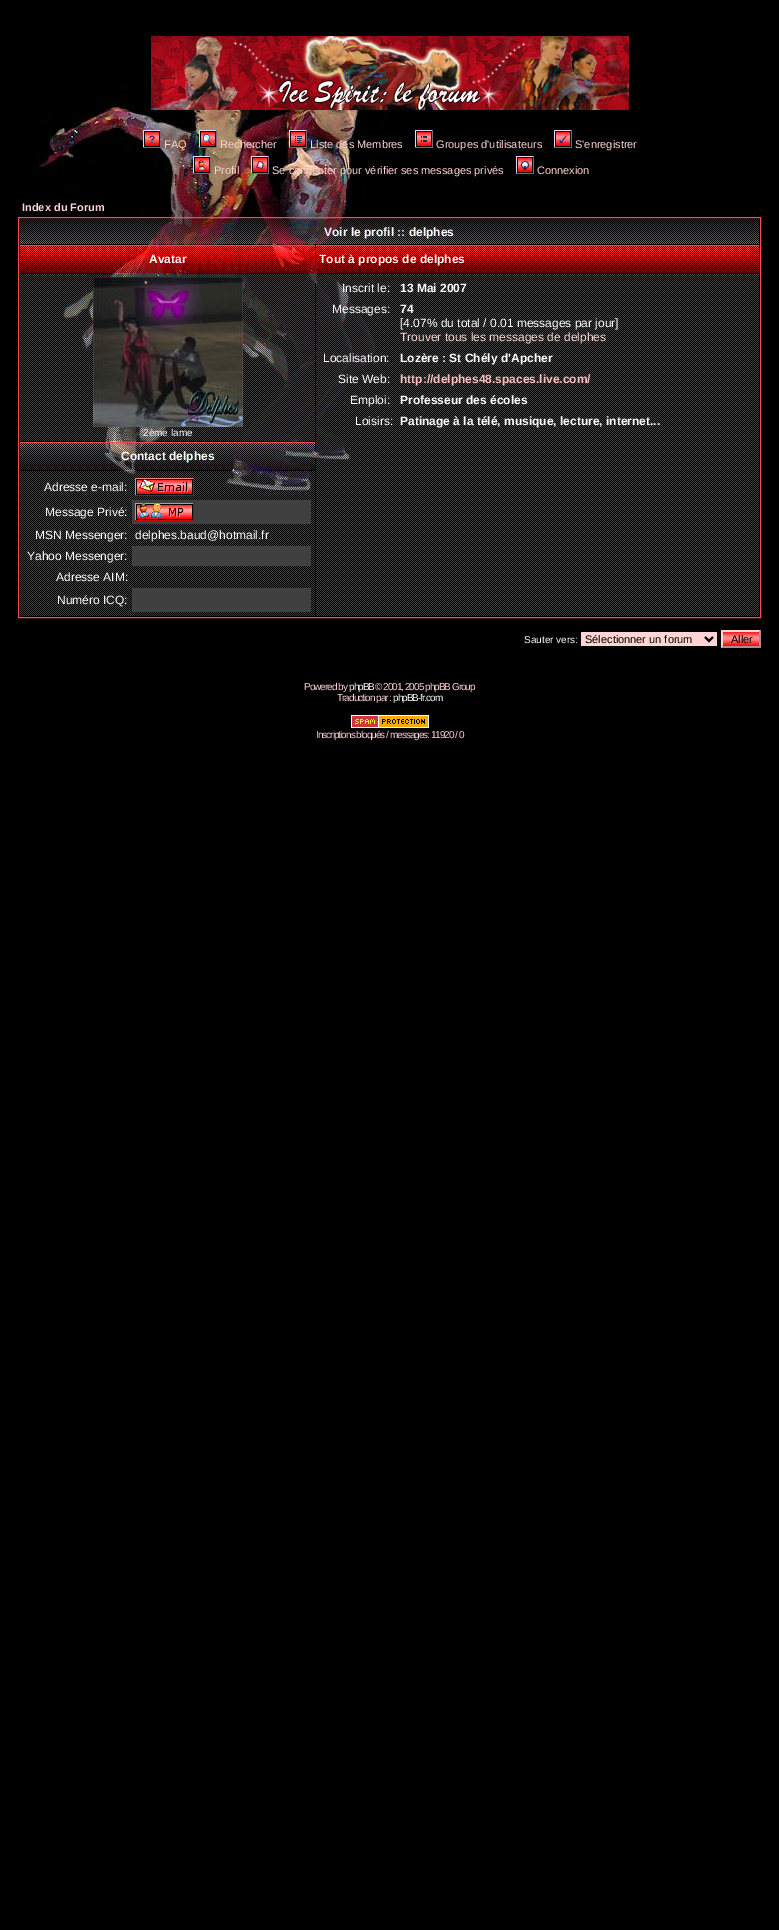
%!PS-Adobe-3.0
%%BoundingBox: 0 0 779 1930
%%LanguageLevel: 3
%%Pages: 1
%%EndComments
%%BeginProlog
/setink { dup -16 bitshift 255 div exch dup -8 bitshift 255 and 255 div exch 255 and 255 div setrgbcolor } def
/usefont { [ exch dup neg 0 0 3 -1 roll 0 0 ] selectfont } def
/drawimage { 5 dict begin { /h /w /y /x /name } { exch def } forall
  gsave x y translate w h scale
  w h 8 [w 0 0 h 0 0] name (r) file false 3 colorimage grestore end } def
%%EndProlog
%%BeginSetup
<< /PageSize [779 1930] >> setpagedevice
%%EndSetup
%%Page: 1 1
0 1930 translate 1 -1 scale
4 setmiterlimit
16#000000 setink
0 0 779 1930 rectfill
(img1.raw) 33 64 391 439 drawimage
(img2.raw) 151 36 478 74 drawimage
(img3.raw) 143 130 18 18 drawimage
/LiberationSans-Regular 11 usefont
16#FFD4D4 setink
164 148 moveto (FAQ) show
(img4.raw) 199 130 18 18 drawimage
220 148 moveto (Rechercher) show
(img5.raw) 289 130 18 18 drawimage
310 148 moveto (Liste des Membres) show
(img6.raw) 415 130 18 18 drawimage
436 148 moveto (Groupes d'utilisateurs) show
(img7.raw) 554 130 18 18 drawimage
575 148 moveto (S'enregistrer) show
(img8.raw) 193 156 18 18 drawimage
214 174 moveto (Profil) show
(img9.raw) 251 156 18 18 drawimage
272 174 moveto (Se connecter pour vérifier ses messages privés) show
(img10.raw) 516 156 18 18 drawimage
537 174 moveto (Connexion) show
/LiberationSans-Bold 11 usefont
22 211 moveto (Index du Forum) show
16#F24D4D setink
18.5 217.5 742 400 rectstroke
(img11.raw) 20 219 739 25 drawimage
/LiberationSans-Bold 12 usefont
16#FFFFFF setink
324 236 moveto (Voir le profil :: delphes) show
(img12.raw) 20 245 295 28 drawimage
149 263 moveto (Avatar) show
(img13.raw) 316 245 443 28 drawimage
319 263 moveto (Tout à propos de delphes) show
(img14.raw) 316 274 443 342 drawimage
/LiberationSans-Regular 12 usefont
342 292 moveto (Inscrit le:) show
/LiberationSans-Bold 12 usefont
400 292 moveto (13 Mai 2007) show
/LiberationSans-Regular 12 usefont
332 313 moveto (Messages:) show
/LiberationSans-Bold 12 usefont
400 313 moveto (74) show
/LiberationSans-Regular 12 usefont
400 327 moveto ([4.07% du total / 0.01 messages par jour]) show
16#FFD4D4 setink
400 341 moveto (Trouver tous les messages de delphes) show
16#FFFFFF setink
323 362 moveto (Localisation:) show
/LiberationSans-Bold 12 usefont
400 362 moveto (Lozère : St Chély d'Apcher) show
/LiberationSans-Regular 12 usefont
338 383 moveto (Site Web:) show
/LiberationSans-Bold 12 usefont
16#FFBFBF setink
400 383 moveto (http://delphes48.spaces.live.com/) show
/LiberationSans-Regular 12 usefont
16#FFFFFF setink
350 404 moveto (Emploi:) show
/LiberationSans-Bold 12 usefont
400 404 moveto (Professeur des écoles) show
/LiberationSans-Regular 12 usefont
355 425 moveto (Loisirs:) show
/LiberationSans-Bold 12 usefont
400 425 moveto (Patinage à la télé, musique, lecture, internet...) show
(img15.raw) 20 274 295 167 drawimage
(img16.raw) 93 277 150 150 drawimage
/LiberationSans-Regular 10 usefont
143 436 moveto (2ème lame) show
(img17.raw) 20 442 295 28 drawimage
/LiberationSans-Bold 12 usefont
121 460 moveto (Contact delphes) show
(img18.raw) 20 471 295 145 drawimage
/LiberationSans-Regular 12 usefont
44 491 moveto (Adresse e-mail:) show
(img19.raw) 135 478 59 18 drawimage
45 516 moveto (Message Privé:) show
(img20.raw) 132 500 179 24 drawimage
(img21.raw) 135 503 59 18 drawimage
[
    [(MSN Messenger:) 35 539]
    [(delphes.baud@hotmail.fr) 135 539]
    [(Yahoo Messenger:) 27 560]
] { aload pop moveto show } forall
(img22.raw) 132 546 179 20 drawimage
56 581 moveto (Adresse AIM:) show
57 604 moveto (Numéro ICQ:) show
(img20.raw) 132 588 179 24 drawimage
/LiberationSans-Regular 10 usefont
524 643 moveto (Sauter vers:) show
16#FFD4D4 setink
581 632 136 14 rectfill
16#000000 setink
2 setlinewidth
705 637 moveto 709 641 lineto 713 637 lineto stroke
/LiberationSans-Regular 11 usefont
585 643 moveto (Sélectionner un forum) show
(img23.raw) 721 630 40 18 drawimage
16#FFD4D4 setink
721 630 moveto 761 630 lineto 759 632 lineto 723 632 lineto closepath fill
16#AA8D8D setink
761 630 moveto 761 648 lineto 759 646 lineto 759 632 lineto closepath fill
761 648 moveto 721 648 lineto 723 646 lineto 759 646 lineto closepath fill
16#FFD4D4 setink
721 648 moveto 721 630 lineto 723 632 lineto 723 646 lineto closepath fill
16#000000 setink
731 643 moveto (Aller) show
/LiberationSans-Regular 10 usefont
16#FFD4D4 setink
304 690 moveto -1 0 (Powered by) ashow
16#FFFFFF setink
349 690 moveto -1 0 (phpBB) ashow
16#FFD4D4 setink
375 690 moveto -1 0 (© 2001, 2005 phpBB Group) ashow
337 701 moveto -1 0 (Traduction par :) ashow
16#FFFFFF setink
393 701 moveto -1 0 (phpBB-fr.com) ashow
(img24.raw) 351 715 78 13 drawimage
16#FFD4D4 setink
316 738 moveto -1 0 (Inscriptions bloqués / messages: 11920 / 0) ashow
showpage
%%EOF
